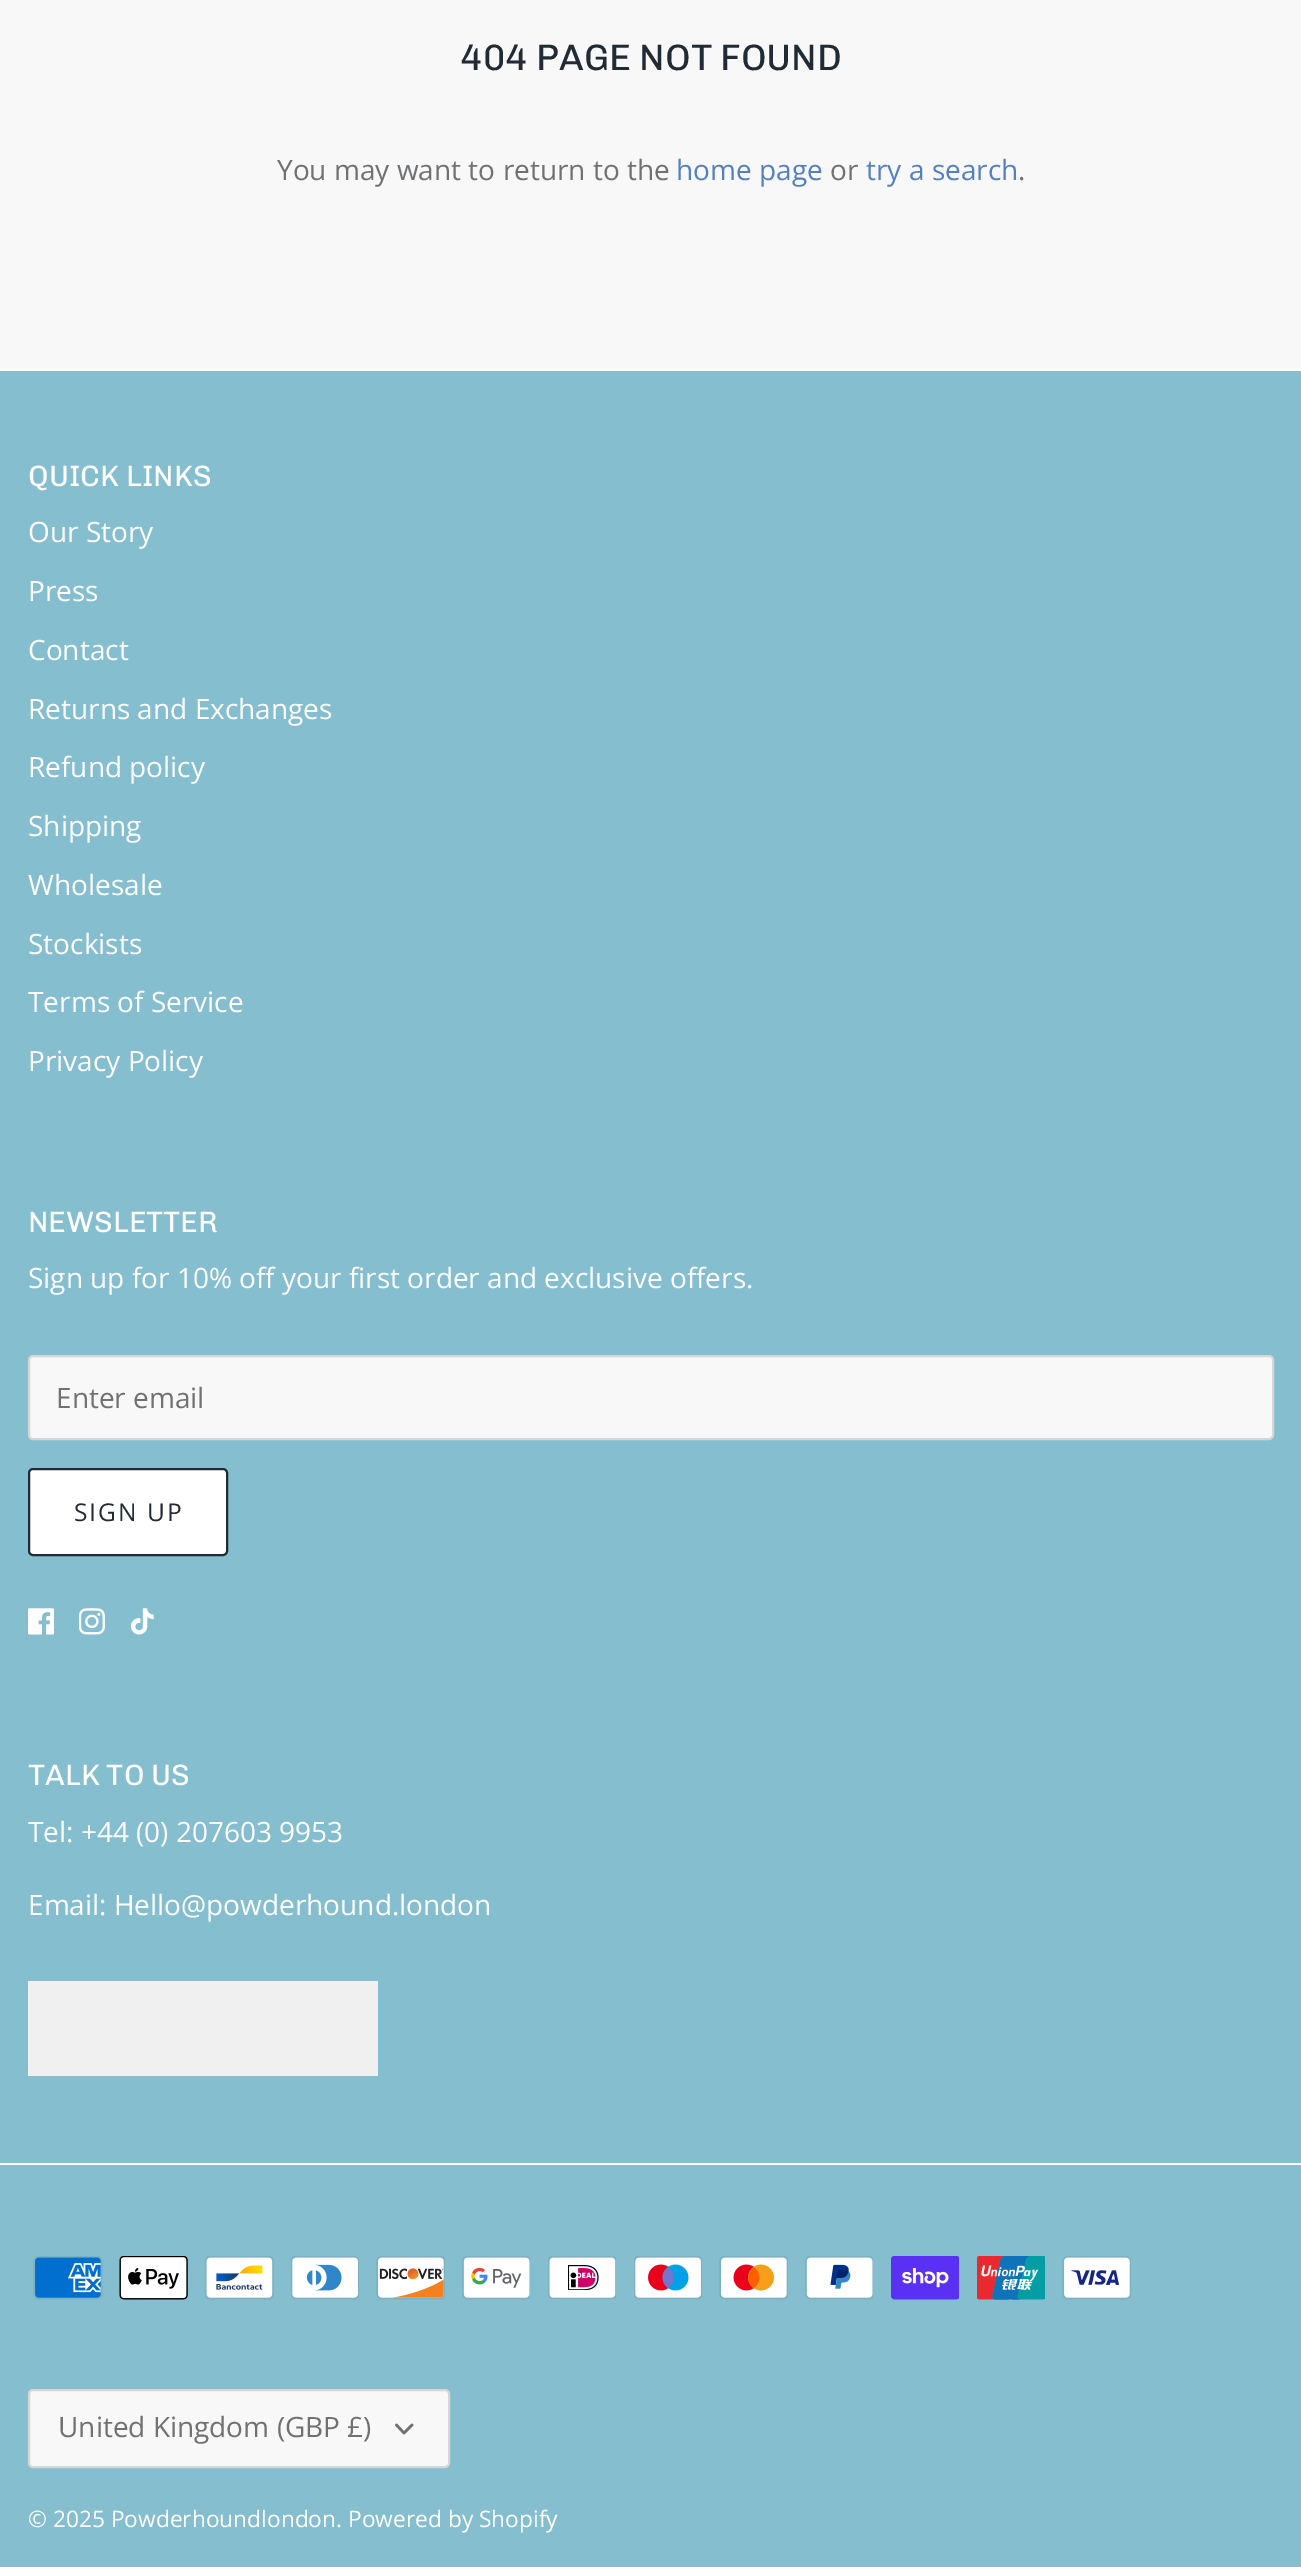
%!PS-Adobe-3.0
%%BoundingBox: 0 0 1301 2567
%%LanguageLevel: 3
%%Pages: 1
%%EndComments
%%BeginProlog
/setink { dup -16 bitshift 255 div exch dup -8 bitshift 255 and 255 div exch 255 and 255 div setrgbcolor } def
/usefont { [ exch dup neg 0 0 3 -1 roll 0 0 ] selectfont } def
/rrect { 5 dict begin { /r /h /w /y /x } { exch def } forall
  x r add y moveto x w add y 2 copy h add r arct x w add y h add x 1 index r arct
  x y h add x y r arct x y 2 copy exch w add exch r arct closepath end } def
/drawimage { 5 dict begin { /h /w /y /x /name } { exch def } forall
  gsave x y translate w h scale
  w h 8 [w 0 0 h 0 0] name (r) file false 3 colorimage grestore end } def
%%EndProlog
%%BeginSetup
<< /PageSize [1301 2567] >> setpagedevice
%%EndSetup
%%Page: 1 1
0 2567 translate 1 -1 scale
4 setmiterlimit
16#F8F8F8 setink
0 0 1301 2567 rectfill
/Chivo-Regular 36.75 usefont
16#212B36 setink
460 70 moveto (404 PAGE NOT FOUND) show
/OpenSans-Regular 28 usefont
16#707173 setink
277 180 moveto (You may want to return to the) show
16#5280C1 setink
676 180 moveto (home page) show
16#707173 setink
830 180 moveto (or) show
16#5280C1 setink
866 180 moveto (try a search) show
16#707173 setink
1018 180 moveto (.) show
16#84BECF setink
0 371 1301 2196 rectfill
16#FFFFFF setink
0 369 1301 2 rectfill
/Chivo-Regular 29.5 usefont
28 486 moveto (QUICK LINKS) show
/OpenSans-Regular 28 usefont
[
    [(Our Story) 28 542]
    [(Press) 28 601]
    [(Contact) 28 660]
    [(Returns and Exchanges) 28 719]
    [(Refund policy) 28 777]
    [(Shipping) 28 836]
    [(Wholesale) 28 895]
    [(Stockists) 28 954]
    [(Terms of Service) 28 1012]
    [(Privacy Policy) 28 1071]
] { aload pop moveto show } forall
/Chivo-Regular 29.5 usefont
28 1232 moveto (NEWSLETTER) show
/OpenSans-Regular 28 usefont
28 1288 moveto (Sign up for 10% off your first order and exclusive offers.) show
16#F8F8F8 setink
29 1356 1244 83 4 rrect gsave fill grestore
16#D6D6D7 setink
2 setlinewidth
stroke
16#707173 setink
56 1408 moveto (Enter email) show
16#FFFFFF setink
29 1469 198 86 4 rrect gsave fill grestore
16#212B36 setink
stroke
/OpenSans-Regular 24.5 usefont
74 1521 moveto 2 0 (SIGN UP) ashow
(img1.raw) 28 1608 26 27 drawimage
(img2.raw) 79 1608 26 27 drawimage
(img3.raw) 130 1608 24 27 drawimage
/Chivo-Regular 29.5 usefont
16#FFFFFF setink
28 1785 moveto (TALK TO US) show
/OpenSans-Regular 28 usefont
28 1842 moveto (Tel: +44 \(0\) 207603 9953) show
28 1915 moveto (Email: Hello@powderhound.london) show
16#F0F0F0 setink
28 1981 350 95 rectfill
16#FFFFFF setink
0 2163 1301 2 rectfill
(img4.raw) 33 2256 70 44 drawimage
(img5.raw) 119 2256 69 44 drawimage
(img6.raw) 205 2256 69 44 drawimage
(img7.raw) 291 2256 68 44 drawimage
(img8.raw) 376 2256 69 44 drawimage
(img9.raw) 462 2256 68 44 drawimage
(img10.raw) 548 2256 68 43 drawimage
(img11.raw) 634 2256 68 44 drawimage
(img12.raw) 719 2256 69 44 drawimage
(img13.raw) 805 2256 68 44 drawimage
(img14.raw) 891 2256 68 44 drawimage
(img15.raw) 977 2256 68 44 drawimage
(img16.raw) 1062 2256 69 44 drawimage
16#F8F8F8 setink
29 2390 420 77 4 rrect gsave fill grestore
16#D6D6D7 setink
stroke
16#707173 setink
58 2437 moveto (United Kingdom \(GBP £\)) show
2.6 setlinewidth
1 setlinecap
1 setlinejoin
396.5 2425 moveto 404 2433 lineto 412 2425 lineto stroke
/OpenSans-Regular 22.75 usefont
16#FFFFFF setink
28 2527 moveto (© 2025 Powderhoundlondon. Powered by Shopify) show
showpage
%%EOF
